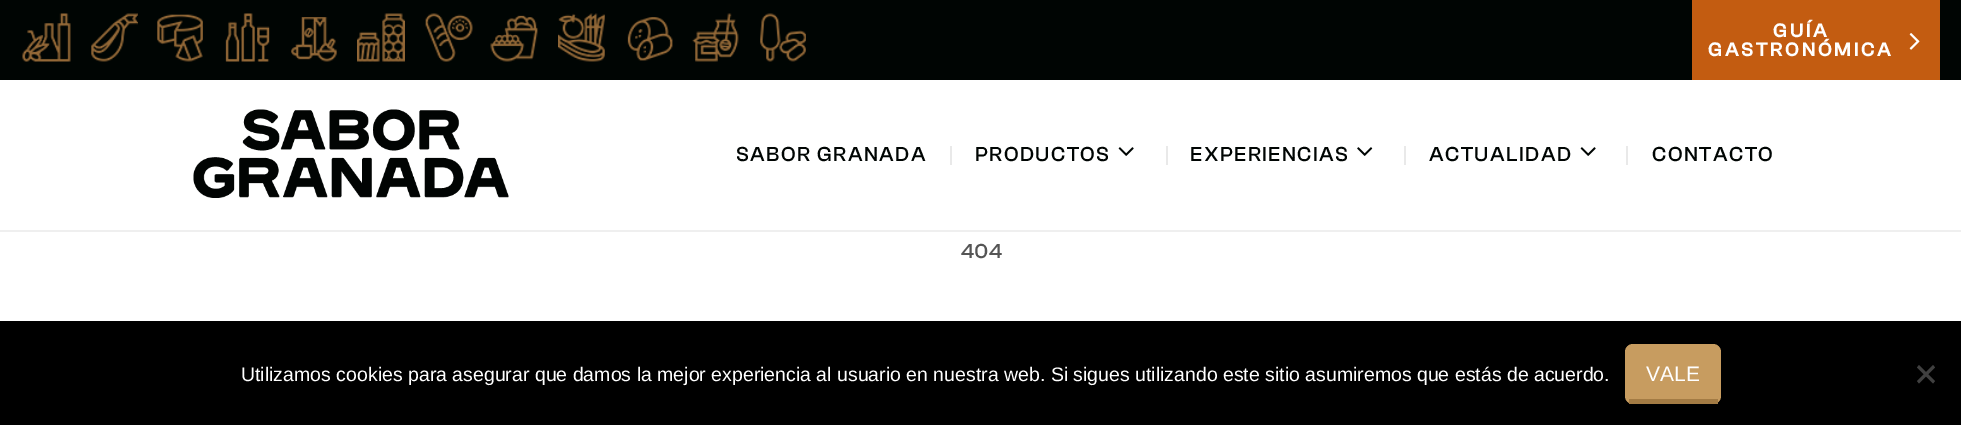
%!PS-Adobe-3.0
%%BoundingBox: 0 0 1961 425
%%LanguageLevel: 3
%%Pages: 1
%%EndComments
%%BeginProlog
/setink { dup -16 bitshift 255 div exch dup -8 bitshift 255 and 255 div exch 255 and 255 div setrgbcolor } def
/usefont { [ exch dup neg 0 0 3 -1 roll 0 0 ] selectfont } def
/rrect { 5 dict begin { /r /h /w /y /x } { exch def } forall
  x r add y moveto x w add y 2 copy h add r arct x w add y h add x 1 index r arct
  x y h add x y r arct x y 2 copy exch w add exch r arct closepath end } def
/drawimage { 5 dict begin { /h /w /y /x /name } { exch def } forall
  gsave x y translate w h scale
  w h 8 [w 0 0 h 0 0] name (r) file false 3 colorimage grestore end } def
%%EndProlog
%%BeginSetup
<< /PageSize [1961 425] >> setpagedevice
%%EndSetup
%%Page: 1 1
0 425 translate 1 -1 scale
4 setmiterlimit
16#FFFFFF setink
0 0 1961 425 rectfill
16#000503 setink
0 0 1961 80 rectfill
(img1.raw) 22 13 49 49 drawimage
(img2.raw) 91 13 47 49 drawimage
(img3.raw) 157 14 46 48 drawimage
(img4.raw) 225 13 45 49 drawimage
(img5.raw) 291 17 46 45 drawimage
(img6.raw) 357 13 48 49 drawimage
(img7.raw) 425 13 48 49 drawimage
(img8.raw) 490 15 48 47 drawimage
(img9.raw) 558 13 47 49 drawimage
(img10.raw) 627 17 46 44 drawimage
(img11.raw) 692 13 47 49 drawimage
(img12.raw) 760 13 46 49 drawimage
16#C35C11 setink
1692 0 248 80 rectfill
/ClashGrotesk-Bold 19.5 usefont
16#FFFFFF setink
1773 37 moveto 3 0 (GUÍA) ashow
1708 56 moveto 3 0 (GASTRONÓMICA) ashow
(img13.raw) 1909 33 11 17 drawimage
16#EFEFEF setink
0 230 1961 2 rectfill
(img14.raw) 193 109 316 89 drawimage
/ClashGrotesk-Medium 21 usefont
16#000503 setink
736 161 moveto 1.5 0 (SABOR GRANADA) ashow
16#E9E9E9 setink
950 146 2 19 rectfill
16#000503 setink
975 161 moveto 1.5 0 (PRODUCTOS) ashow
(img15.raw) 1118 147 16 9 drawimage
16#E9E9E9 setink
1166 146 2 19 rectfill
16#000503 setink
1190 161 moveto 1.5 0 (EXPERIENCIAS) ashow
(img16.raw) 1357 147 16 9 drawimage
16#E9E9E9 setink
1404 146 2 19 rectfill
16#000503 setink
1429 161 moveto 1.5 0 (ACTUALIDAD) ashow
(img15.raw) 1580 147 16 9 drawimage
16#E9E9E9 setink
1626 146 2 19 rectfill
16#000503 setink
1652 161 moveto 1.5 0 (CONTACTO) ashow
16#555555 setink
961 258 moveto (404) show
16#000000 setink
0 321 1961 104 rectfill
/LiberationSans-Regular 19.5 usefont
16#FFFFFF setink
241 381 moveto (Utilizamos cookies para asegurar que damos la mejor experiencia al usuario en nuestra web. Si sigues utilizando este sitio asumiremos que estás de acuerdo.) show
16#C79C60 setink
1625 344 96 60 8 rrect fill
16#A37B44 setink
1629 399 89 5 rectfill
/LiberationSans-Regular 21 usefont
16#FFFFFF setink
1646 381 moveto (VALE) show
16#404040 setink
1933 365 moveto 1935 367.5 lineto 1919 383.5 lineto 1917 381 lineto closepath fill
1917 367.5 moveto 1919 365 lineto 1935 381 lineto 1933 383.5 lineto closepath fill
showpage
%%EOF
